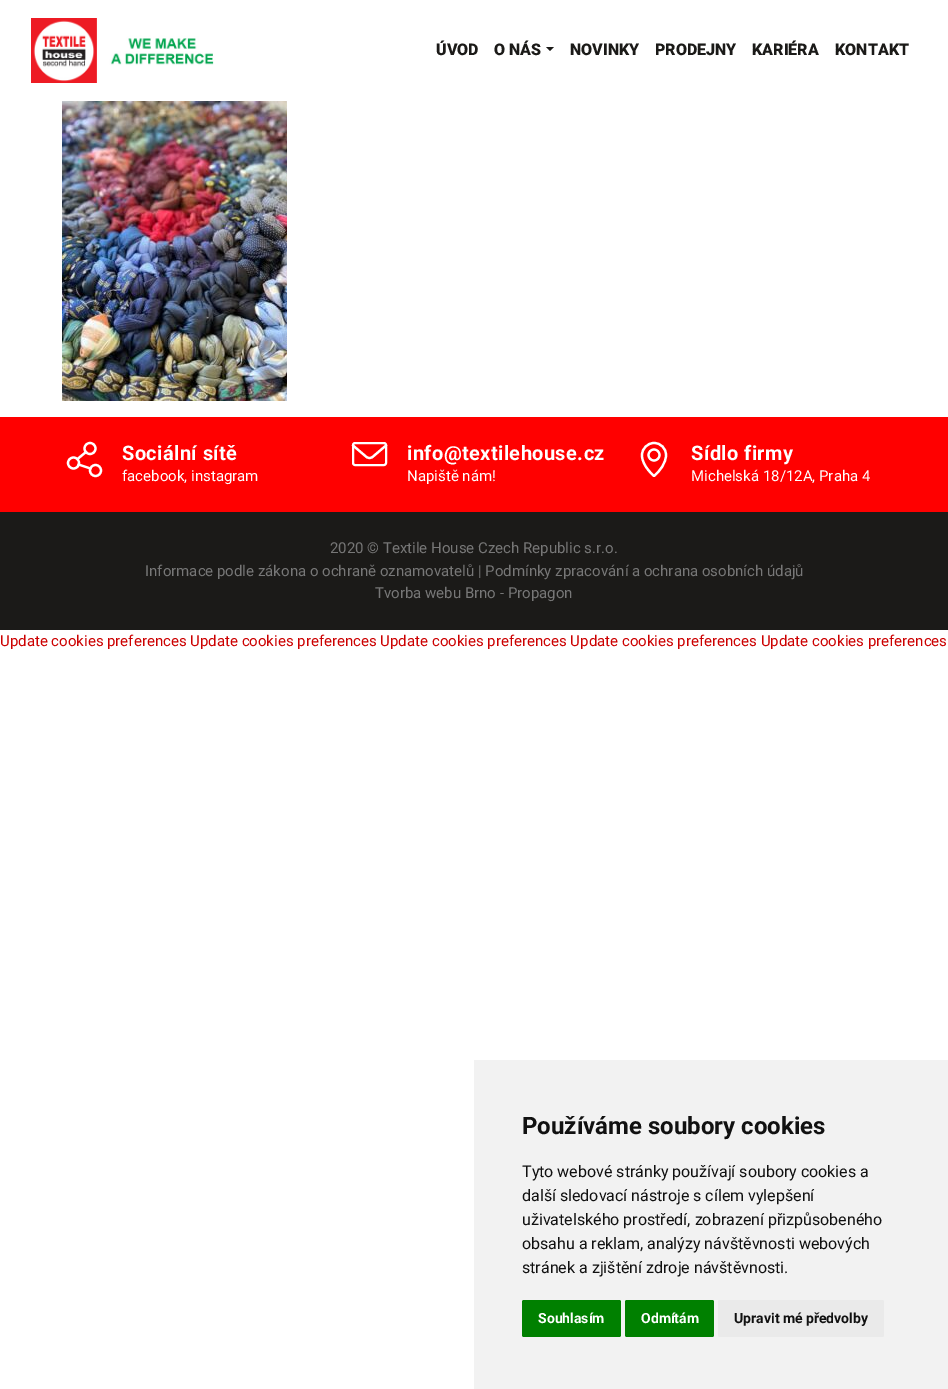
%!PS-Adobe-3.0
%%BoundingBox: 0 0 948 1389
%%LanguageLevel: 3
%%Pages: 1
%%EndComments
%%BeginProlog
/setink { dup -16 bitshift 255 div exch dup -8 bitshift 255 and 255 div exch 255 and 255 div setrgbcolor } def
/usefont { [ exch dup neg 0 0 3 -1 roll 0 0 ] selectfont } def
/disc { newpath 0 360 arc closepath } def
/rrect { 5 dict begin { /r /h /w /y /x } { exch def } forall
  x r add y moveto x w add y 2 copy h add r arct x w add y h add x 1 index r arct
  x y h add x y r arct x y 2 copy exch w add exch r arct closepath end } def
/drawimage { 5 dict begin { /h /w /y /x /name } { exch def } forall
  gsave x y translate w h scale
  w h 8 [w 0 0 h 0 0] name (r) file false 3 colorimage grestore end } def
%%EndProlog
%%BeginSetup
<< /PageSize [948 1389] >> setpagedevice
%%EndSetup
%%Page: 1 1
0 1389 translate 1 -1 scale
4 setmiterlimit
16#FFFFFF setink
0 0 948 1389 rectfill
(img1.raw) 31 18 183 65 drawimage
/Roboto-Black 16 usefont
16#1B1A18 setink
436 55 moveto (ÚVOD) show
494 55 moveto (O NÁS) show
546 47 moveto 554 47 lineto 550 51 lineto closepath fill
[
    [(NOVINKY) 570 55]
    [(PRODEJNY) 655 55]
    [(KARIÉRA) 752 55]
    [(KONTAKT) 835 55]
] { aload pop moveto show } forall
(img2.raw) 62 101 225 300 drawimage
16#FF0000 setink
0 417 948 95 rectfill
16#FFFFFF setink
2.2 setlinewidth
73.5 463 5.5 disc stroke
90 448.5 5.5 disc stroke
95.5 470.5 5.5 disc stroke
1 setlinecap
1 setlinejoin
78.5 464.5 moveto 90.5 468.5 lineto 86 452 moveto 77.5 459 lineto stroke
/Roboto-Bold 20 usefont
122 460 moveto 0.4 0 (Sociální sítě) ashow
/Roboto-Regular 15 usefont
122 481 moveto (facebook, instagram) show
2 setlinewidth
0 setlinecap
0 setlinejoin
353 443 33 22 2 rrect stroke
2.2 setlinewidth
1 setlinecap
1 setlinejoin
353 445.5 moveto 366.5 457 lineto 368.5 458.5 370.5 458.5 372.5 457 curveto 386 445.5 lineto stroke
/Roboto-Bold 20 usefont
407 460 moveto 0.4 0 (info@textilehouse.cz) ashow
/Roboto-Regular 15 usefont
407 481 moveto (Napiště nám!) show
666 455 moveto 666 463 660 471 654 476 curveto 654 476 642.5 466.5 642 456 curveto 642 455 lineto 642 448.5 647.5 443 654 443 curveto 661 443 666 448.5 666 455 curveto closepath stroke
0 setlinecap
0 setlinejoin
654 455 5.5 disc stroke
/Roboto-Bold 20 usefont
691 460 moveto 0.4 0 (Sídlo firmy) ashow
/Roboto-Regular 15 usefont
691 481 moveto (Michelská 18/12A, Praha 4) show
16#1B1A18 setink
0 512 948 118 rectfill
16#777777 setink
[
    [(2020 © Textile House Czech Republic s.r.o.) 330 553]
    [(Informace podle zákona o ochraně oznamovatelů | Podmínky zpracování a ochrana osobních údajů) 145 576]
    [(Tvorba webu Brno - Propagon) 375 598]
] { aload pop moveto show } forall
16#CC0000 setink
0 646 moveto (Update cookies preferences Update cookies preferences Update cookies preferences Update cookies preferences Update cookies preferences) show
16#F2F2F2 setink
474 1060 474 329 rectfill
/Roboto-Bold 24 usefont
16#111111 setink
522 1134 moveto (Používáme soubory cookies) show
/Roboto-Regular 16 usefont
[
    [(Tyto webové stránky používají soubory cookies a) 522 1177]
    [(další sledovací nástroje s cílem vylepšení) 522 1201]
    [(uživatelského prostředí, zobrazení přizpůsobeného) 522 1225]
    [(obsahu a reklam, analýzy návštěvnosti webových) 522 1249]
    [(stránek a zjištění zdroje návštěvnosti.) 522 1273]
] { aload pop moveto show } forall
16#008000 setink
522 1300 99 37 2 rrect fill
/Roboto-Bold 14 usefont
16#FFFFFF setink
538 1323 moveto (Souhlasím) show
16#008000 setink
625 1300 89 37 2 rrect fill
16#FFFFFF setink
641 1323 moveto (Odmítám) show
16#EAEAEA setink
718 1300 166 37 2 rrect fill
16#111111 setink
734 1323 moveto (Upravit mé předvolby) show
showpage
%%EOF
